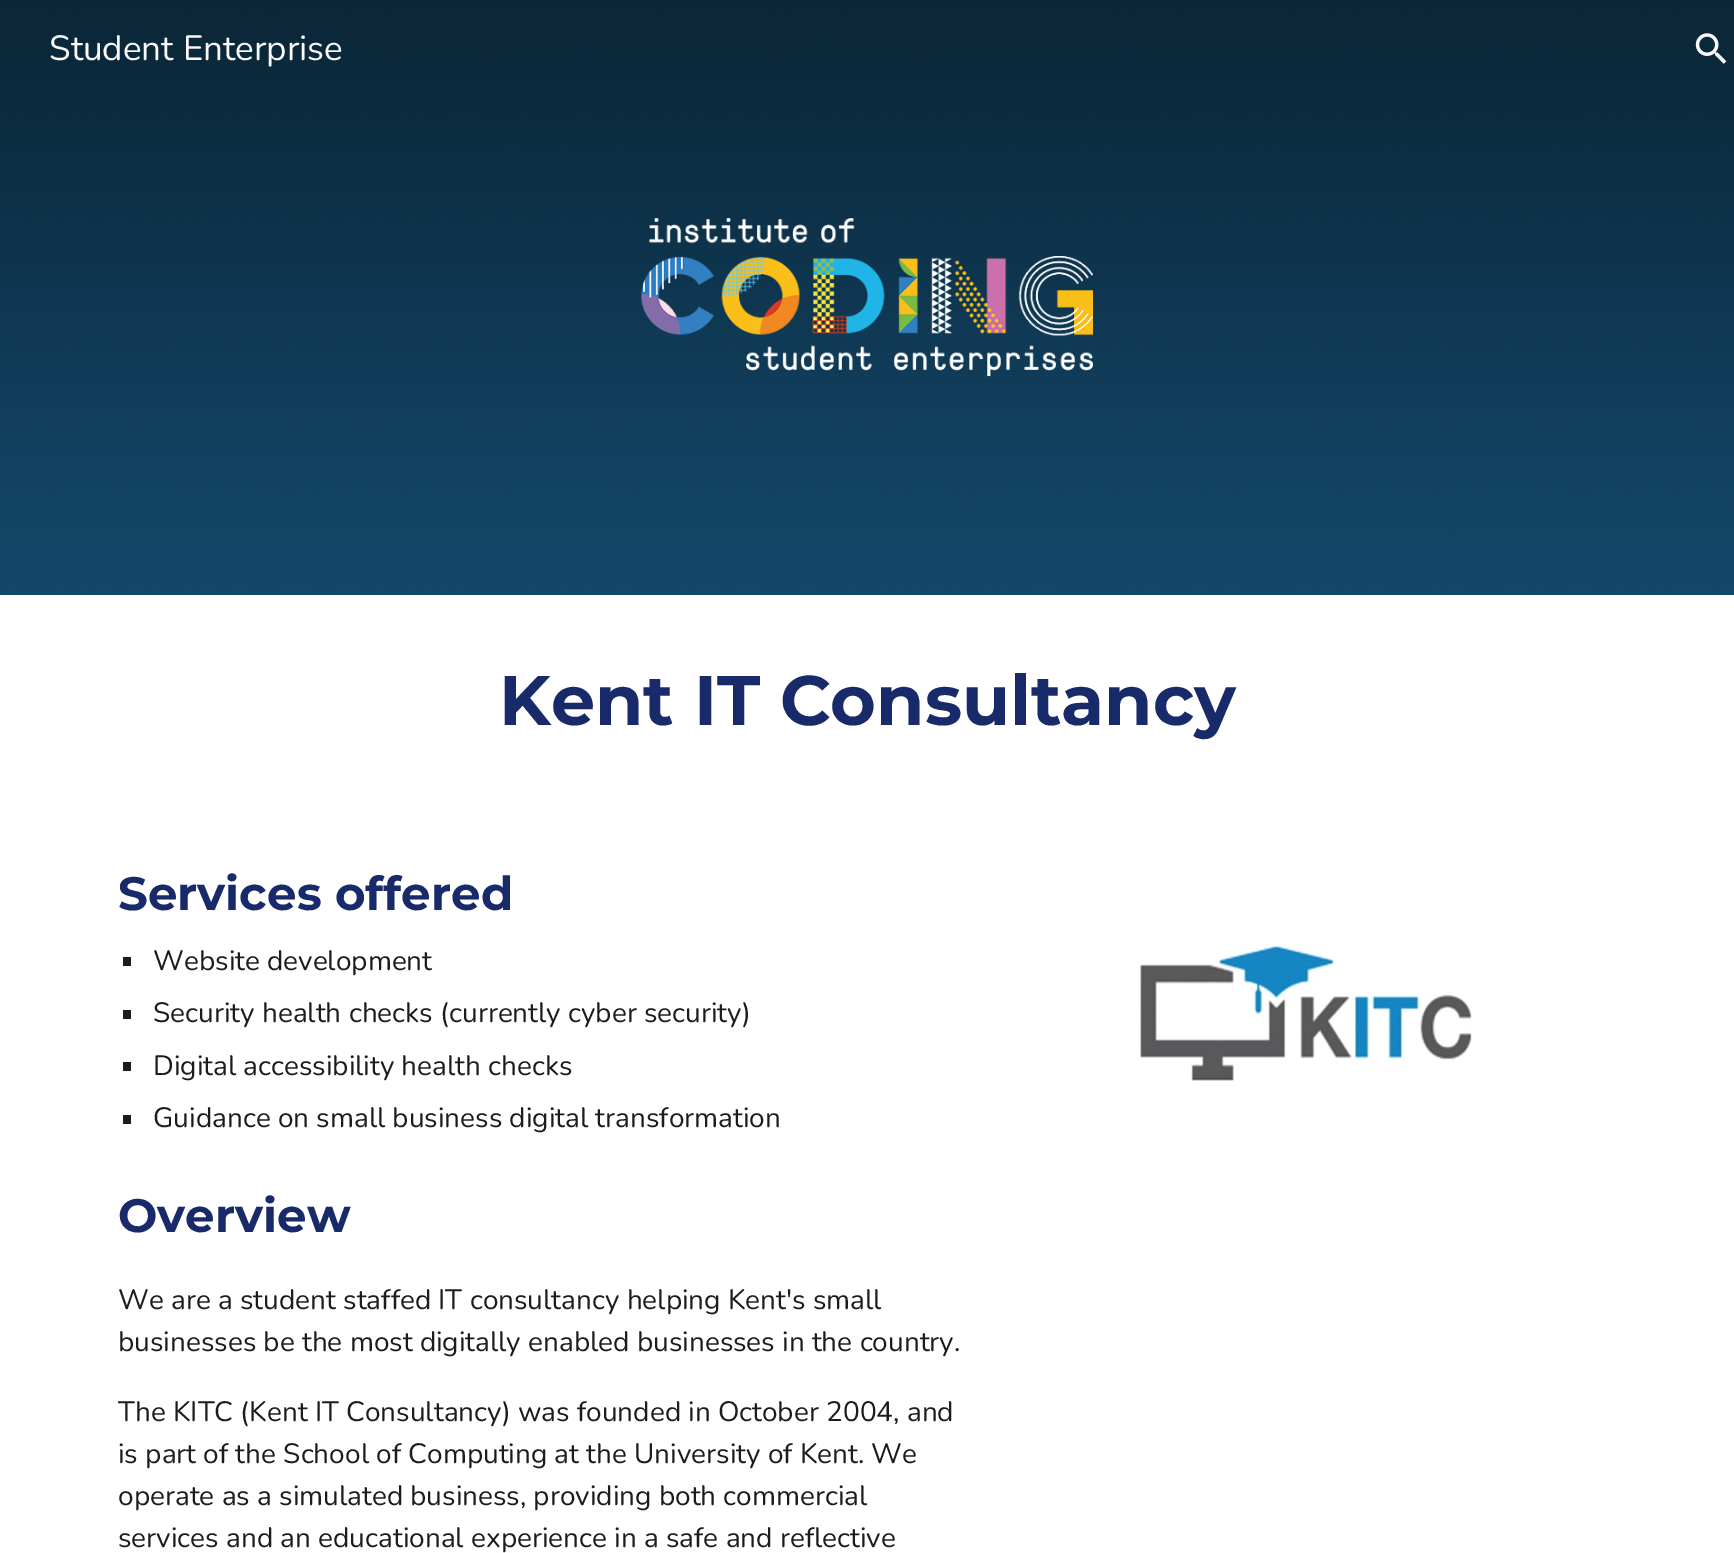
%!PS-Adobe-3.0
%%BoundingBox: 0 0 1734 1553
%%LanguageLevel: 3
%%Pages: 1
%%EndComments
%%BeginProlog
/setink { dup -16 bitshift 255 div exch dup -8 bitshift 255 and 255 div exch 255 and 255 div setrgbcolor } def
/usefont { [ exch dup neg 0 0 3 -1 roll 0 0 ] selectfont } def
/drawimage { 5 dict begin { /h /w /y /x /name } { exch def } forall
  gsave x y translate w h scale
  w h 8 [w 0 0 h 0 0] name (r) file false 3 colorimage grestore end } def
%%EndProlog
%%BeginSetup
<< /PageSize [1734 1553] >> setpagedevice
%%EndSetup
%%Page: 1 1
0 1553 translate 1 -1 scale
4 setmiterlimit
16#FFFFFF setink
0 0 1734 1553 rectfill
(img2.raw) 0 0 1734 595 drawimage
/Nunito-Regular 35 usefont
16#F9F9F9 setink
49 60 moveto (Student Enterprise) show
(img1.raw) 1695 33 32 31 drawimage
/Montserrat-Bold 70 usefont
16#182A69 setink
499 725 moveto (Kent IT Consultancy) show
/Montserrat-Bold 46.75 usefont
118 910 moveto (Services offered) show
16#1C1C1C setink
123 957 8 9 rectfill
/Nunito-Regular 28 usefont
153 970 moveto (Website development) show
123 1010 8 9 rectfill
153 1022 moveto (Security health checks \(currently cyber security\)) show
123 1062 8 9 rectfill
153 1075 moveto (Digital accessibility health checks) show
123 1115 8 9 rectfill
153 1127 moveto (Guidance on small business digital transformation) show
/Montserrat-Bold 46.75 usefont
16#182A69 setink
118 1232 moveto (Overview) show
/Nunito-Regular 28 usefont
16#1C1C1C setink
[
    [(We are a student staffed IT consultancy helping Kent's small) 118 1309]
    [(businesses be the most digitally enabled businesses in the country.) 118 1351]
    [(The KITC \(Kent IT Consultancy\) was founded in October 2004, and) 118 1421]
    [(is part of the School of Computing at the University of Kent. We) 118 1463]
    [(operate as a simulated business, providing both commercial) 118 1505]
    [(services and an educational experience in a safe and reflective) 118 1547]
] { aload pop moveto show } forall
(img3.raw) 1139 945 333 136 drawimage
showpage
%%EOF
